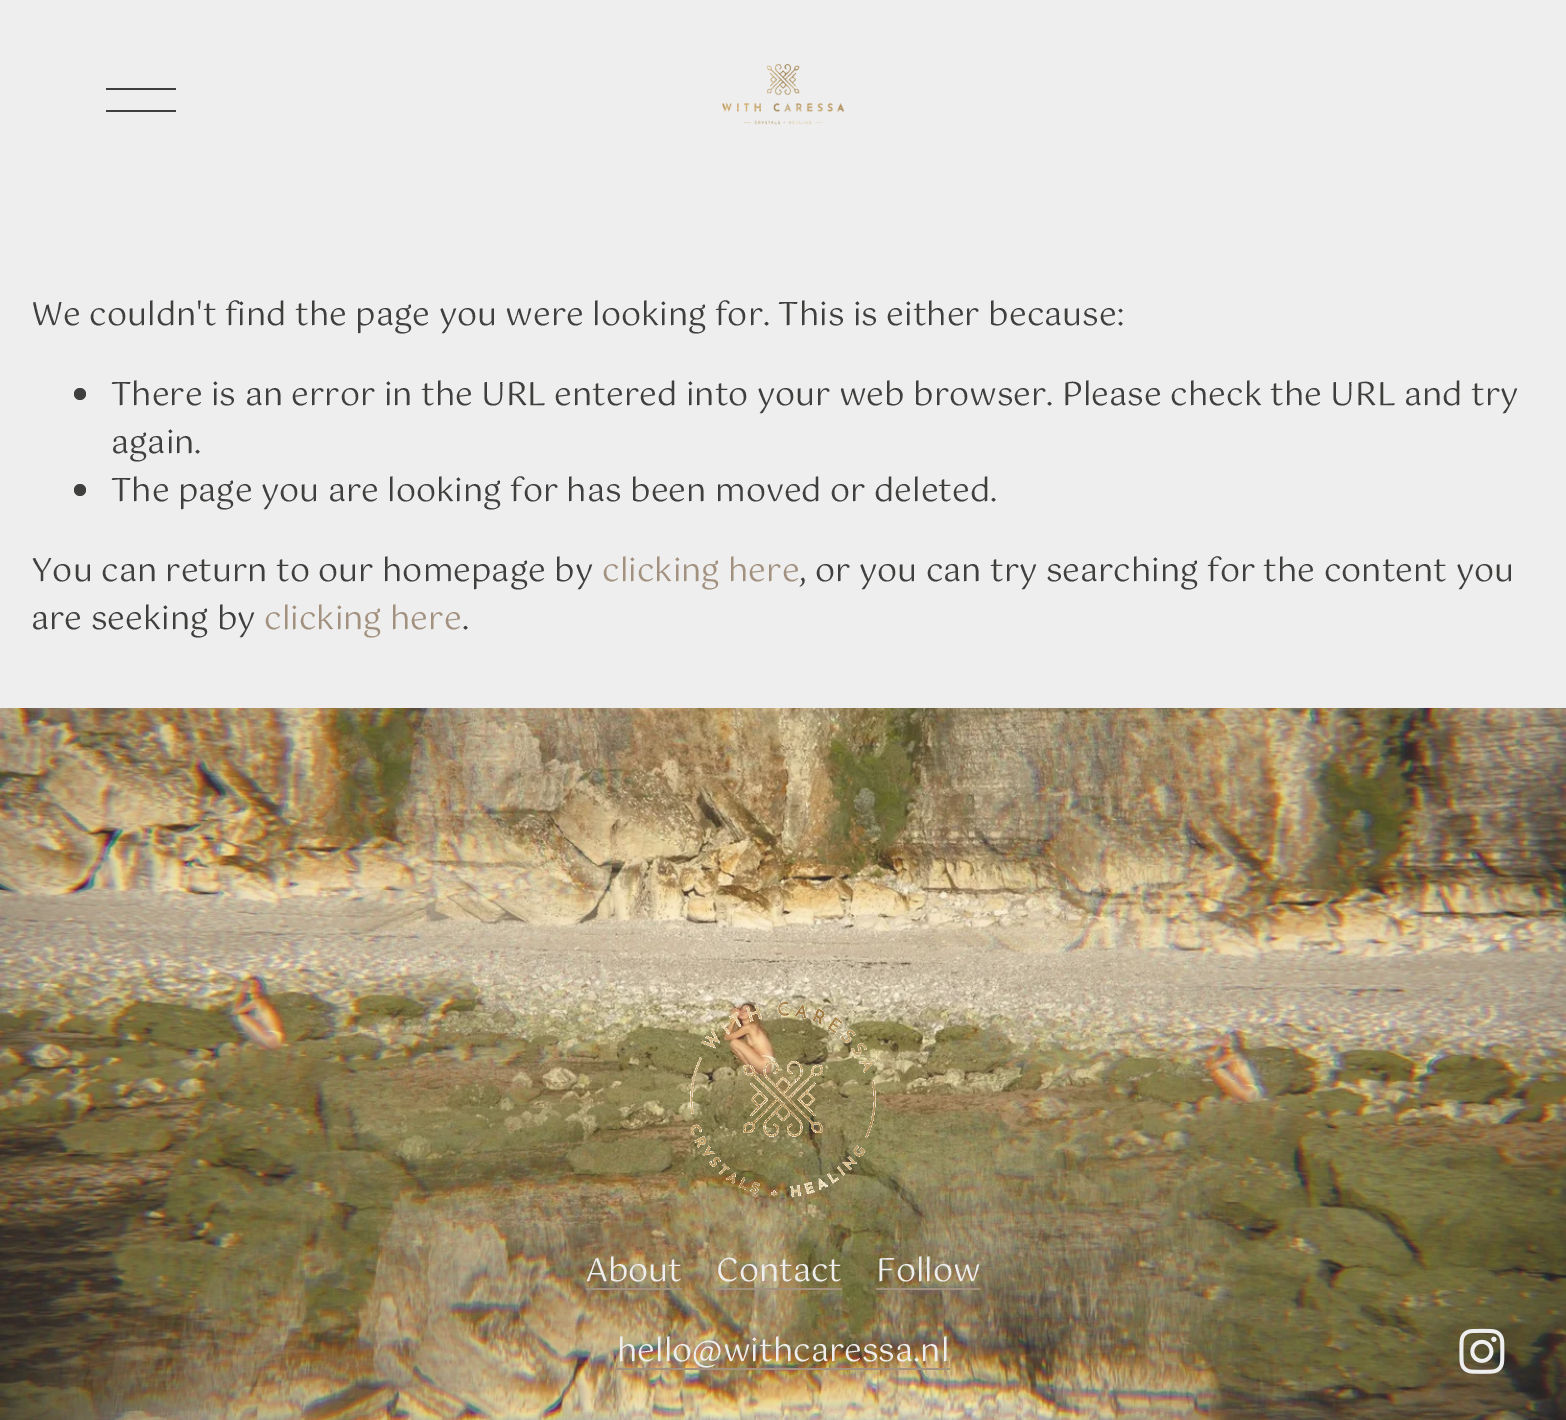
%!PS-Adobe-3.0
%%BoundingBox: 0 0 1566 1420
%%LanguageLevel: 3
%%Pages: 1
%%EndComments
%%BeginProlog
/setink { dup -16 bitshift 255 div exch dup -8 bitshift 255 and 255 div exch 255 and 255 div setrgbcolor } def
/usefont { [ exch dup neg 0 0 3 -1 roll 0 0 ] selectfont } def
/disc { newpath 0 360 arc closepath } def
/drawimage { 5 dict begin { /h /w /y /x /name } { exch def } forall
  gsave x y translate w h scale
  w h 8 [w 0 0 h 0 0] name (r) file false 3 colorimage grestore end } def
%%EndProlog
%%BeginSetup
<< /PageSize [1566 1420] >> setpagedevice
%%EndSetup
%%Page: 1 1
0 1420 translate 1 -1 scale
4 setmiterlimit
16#EEEEEE setink
0 0 1566 1420 rectfill
16#3F403D setink
106 88 70 2 rectfill
106 110 70 2 rectfill
(img1.raw) 722 64 123 61 drawimage
/Gotu-Regular 32 usefont
31 325 moveto (We couldn't find the page you were looking for. This is either because:) show
80 394 6 disc fill
111 405 moveto (There is an error in the URL entered into your web browser. Please check the URL and try) show
111 453 moveto (again.) show
80 490 6 disc fill
111 501 moveto (The page you are looking for has been moved or deleted.) show
31 581 moveto (You can return to our homepage by) show
16#A3917F setink
602 581 moveto (clicking here) show
16#3F403D setink
799 581 moveto (, or you can try searching for the content you) show
31 629 moveto (are seeking by) show
16#A3917F setink
264 629 moveto (clicking here) show
16#3F403D setink
462 629 moveto (.) show
(img2.raw) 0 708 1566 712 drawimage
(img3.raw) 690 1001 186 197 drawimage
16#EEEEEE setink
586 1281 moveto (About) show
16#A3917F setink
586 1288 96 2 rectfill
16#EEEEEE setink
716 1281 moveto (Contact) show
16#A3917F setink
716 1288 126 2 rectfill
16#EEEEEE setink
876 1281 moveto (Follow) show
16#A3917F setink
876 1288 104 2 rectfill
16#EEEEEE setink
617 1361 moveto (hello@withcaressa.nl) show
16#A3917F setink
616 1368 334 2 rectfill
(img4.raw) 1459 1328 46 46 drawimage
showpage
%%EOF
